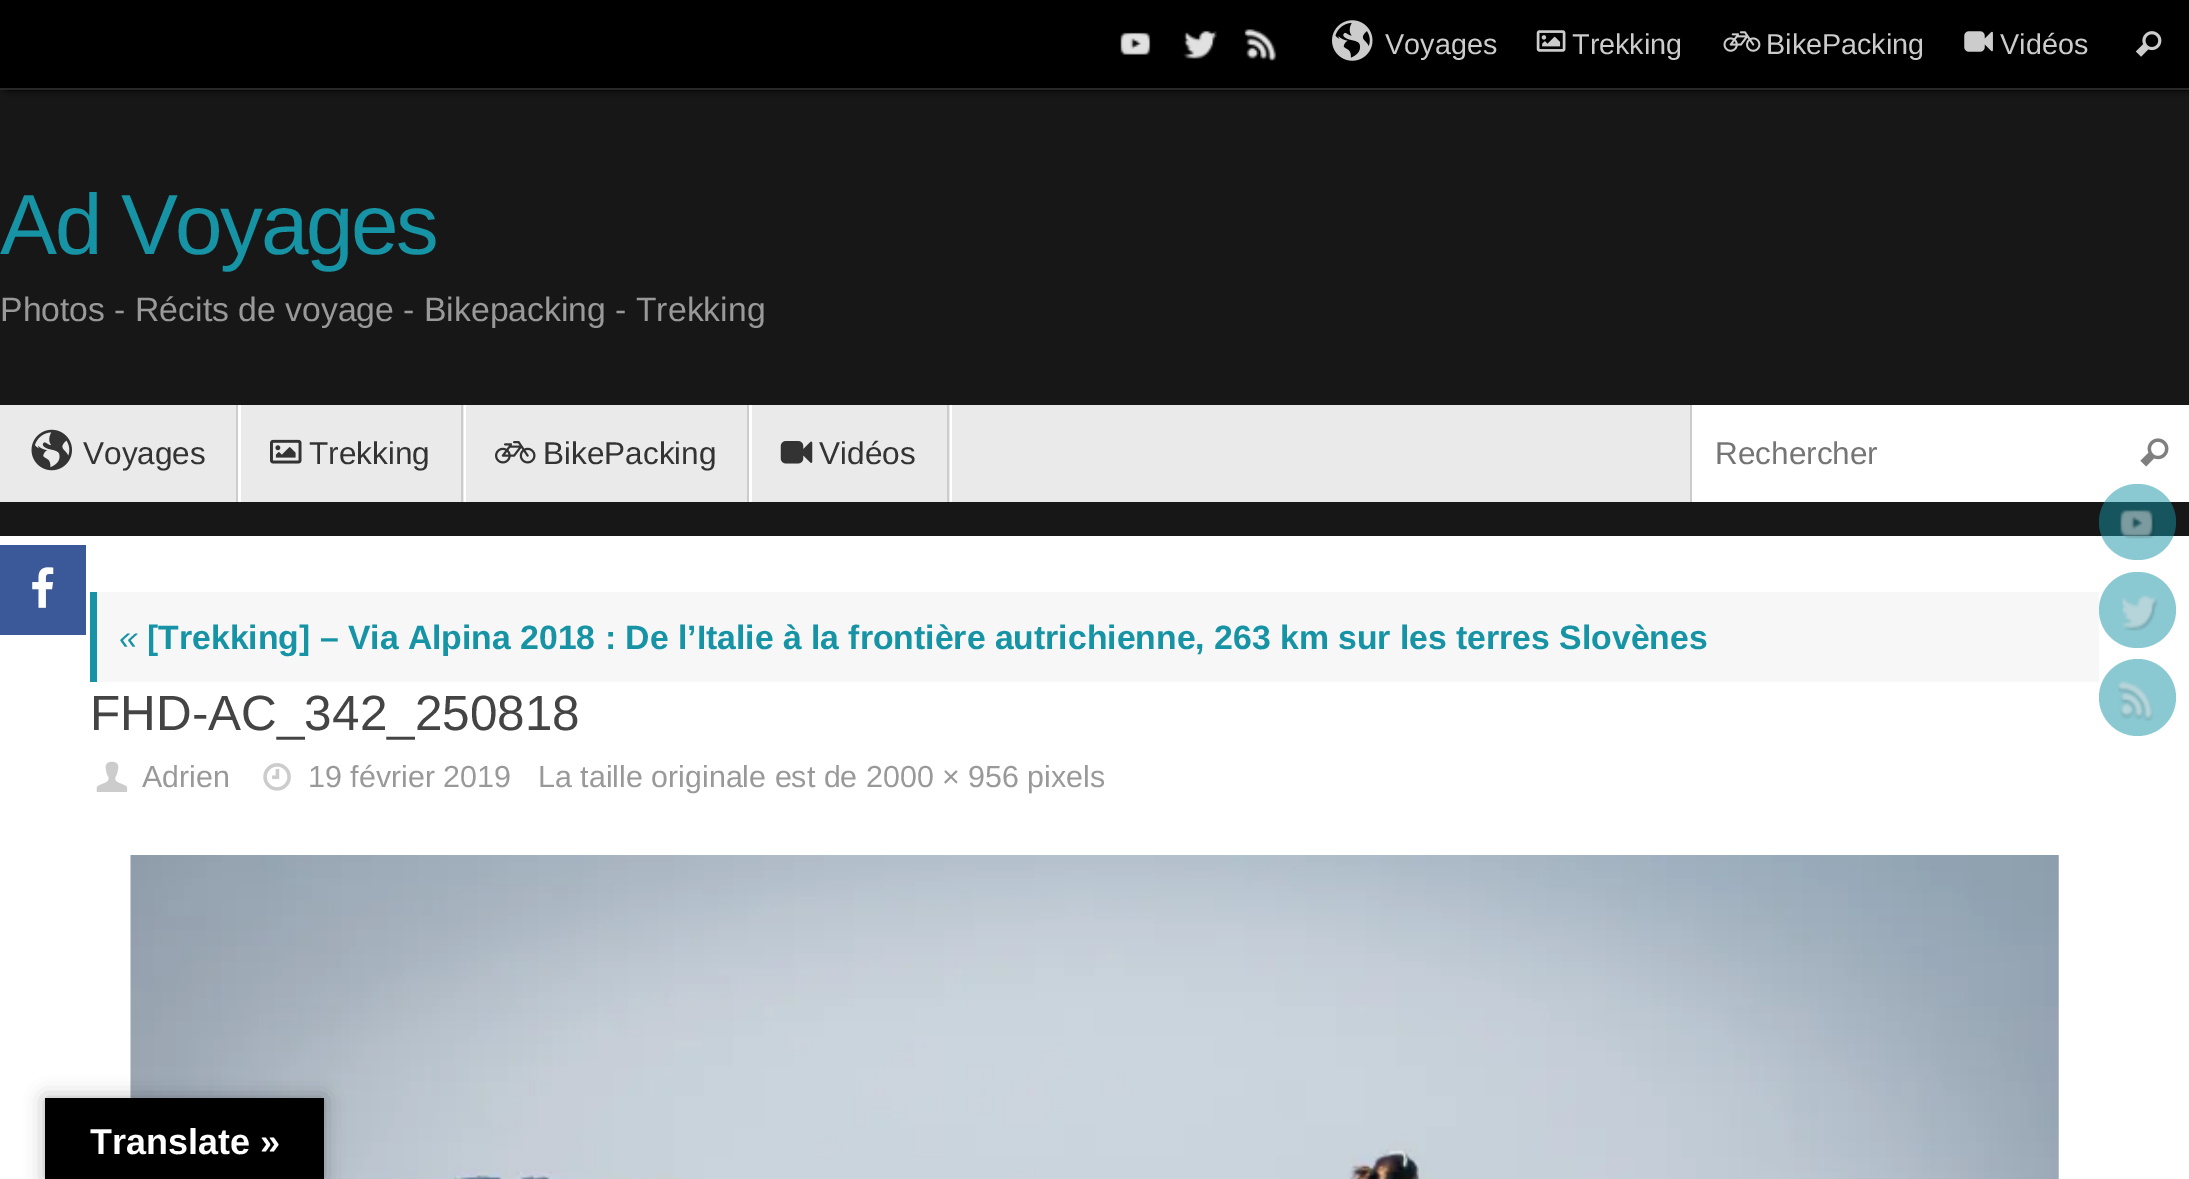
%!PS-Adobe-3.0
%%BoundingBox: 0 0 2189 1179
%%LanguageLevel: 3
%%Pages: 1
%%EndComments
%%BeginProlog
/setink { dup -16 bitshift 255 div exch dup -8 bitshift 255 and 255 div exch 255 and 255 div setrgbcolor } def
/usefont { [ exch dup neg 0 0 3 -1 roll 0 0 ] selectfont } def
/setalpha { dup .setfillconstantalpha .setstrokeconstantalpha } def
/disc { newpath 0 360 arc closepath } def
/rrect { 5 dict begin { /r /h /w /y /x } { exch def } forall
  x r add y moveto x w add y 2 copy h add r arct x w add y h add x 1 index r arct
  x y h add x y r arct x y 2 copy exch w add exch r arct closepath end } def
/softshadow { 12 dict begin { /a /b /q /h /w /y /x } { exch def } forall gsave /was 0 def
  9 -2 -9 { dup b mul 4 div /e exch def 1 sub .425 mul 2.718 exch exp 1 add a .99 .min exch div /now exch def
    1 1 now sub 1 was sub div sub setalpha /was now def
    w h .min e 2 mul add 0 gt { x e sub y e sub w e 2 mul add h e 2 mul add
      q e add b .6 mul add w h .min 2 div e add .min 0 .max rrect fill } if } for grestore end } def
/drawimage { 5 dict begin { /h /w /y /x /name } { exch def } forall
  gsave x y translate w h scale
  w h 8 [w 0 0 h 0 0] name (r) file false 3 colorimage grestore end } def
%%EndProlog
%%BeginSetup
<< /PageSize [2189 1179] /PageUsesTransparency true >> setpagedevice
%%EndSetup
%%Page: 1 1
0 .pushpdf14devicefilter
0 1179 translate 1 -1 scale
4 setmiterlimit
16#171717 setink
0 0 2189 1179 rectfill
16#000000 setink
7 0 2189 90 0 3.5 1 softshadow
0 0 2189 88 rectfill
16#282828 setink
0 88 2189 2 rectfill
(img1.raw) 1120 32 31 23 drawimage
(img2.raw) 1183 30 34 29 drawimage
(img3.raw) 1244 29 33 32 drawimage
(img4.raw) 1332 20 41 41 drawimage
/LiberationSans-Regular 28.75 usefont
16#CCCCCC setink
1385 54 moveto (Voyages) show
(img5.raw) 1536 30 30 22 drawimage
1572 54 moveto (Trekking) show
(img6.raw) 1723 31 38 21 drawimage
1766 54 moveto (BikePacking) show
(img7.raw) 1964 31 29 21 drawimage
2000 54 moveto (Vidéos) show
(img8.raw) 2135 31 27 26 drawimage
/LiberationSans-Regular 85.5 usefont
16#1693A5 setink
0 254 moveto -2.5 0 (Ad Voyages) ashow
/LiberationSans-Regular 33.75 usefont
16#999999 setink
0 321 moveto (Photos - Récits de voyage - Bikepacking - Trekking) show
16#EAEAEA setink
0 405 1690 97 rectfill
16#FFFFFF setink
2 502 moveto 241 502 lineto 241 405 lineto 238 405 lineto 238 502 lineto closepath fill
16#CCCCCC setink
236 405 2 97 rectfill
(img9.raw) 31 429 41 42 drawimage
/LiberationSans-Regular 31.5 usefont
16#333333 setink
83 464 moveto (Voyages) show
16#FFFFFF setink
241 502 moveto 466 502 lineto 466 405 lineto 464 405 lineto 464 502 lineto closepath fill
16#CCCCCC setink
461 405 2 97 rectfill
(img10.raw) 270 439 32 25 drawimage
16#333333 setink
309 464 moveto (Trekking) show
16#FFFFFF setink
466 502 moveto 752 502 lineto 752 405 lineto 749 405 lineto 749 502 lineto closepath fill
16#CCCCCC setink
747 405 2 97 rectfill
(img11.raw) 495 441 41 23 drawimage
16#333333 setink
543 464 moveto (BikePacking) show
16#FFFFFF setink
752 502 moveto 952 502 lineto 952 405 lineto 950 405 lineto 950 502 lineto closepath fill
16#CCCCCC setink
947 405 2 97 rectfill
(img12.raw) 780 441 33 23 drawimage
16#333333 setink
819 464 moveto (Vidéos) show
16#FFFFFF setink
1692 405 497 97 rectfill
16#CCCCCC setink
1690 405 2 97 rectfill
16#757575 setink
1715 464 moveto (Rechercher) show
(img13.raw) 2140 438 29 29 drawimage
[
    [0 536 2189 643 16#FFFFFF]
    [97 592 2002 90 16#F7F7F7]
    [90 592 7 90 16#1693A5]
] { aload pop setink rectfill } forall
/LiberationSans-Italic 33.75 usefont
119 649 moveto («) show
/LiberationSans-Bold 33.75 usefont
147 649 moveto ([Trekking] – Via Alpina 2018 : De l’Italie à la frontière autrichienne, 263 km sur les terres Slovènes) show
/LiberationSans-Regular 49.5 usefont
16#444444 setink
90 730 moveto (FHD-AC_342_250818) show
(img14.raw) 96 761 32 31 drawimage
/LiberationSans-Regular 30.4 usefont
16#999999 setink
142 787 moveto (Adrien) show
(img15.raw) 263 763 28 28 drawimage
308 787 moveto (19 février 2019) show
538 787 moveto (La taille originale est de 2000 × 956 pixels) show
(img16.raw) 130 855 1929 324 drawimage
0.5 setalpha
16#1693A5 setink
2099 484 77 76 38 rrect fill
1 setalpha
(img17.raw) 2120 509 35 30 drawimage
16#8BC9D2 setink
2099 572 77 76 38 rrect fill
(img18.raw) 2122 595 36 36 drawimage
2137.5 697.5 38.5 disc fill
(img19.raw) 2118 681 36 40 drawimage
16#3B5998 setink
0 545 86 90 rectfill
(img20.raw) 32 567 22 41 drawimage
16#000000 setink
45 1098 279 81 0 10 0.3 softshadow
45 1098 279 81 rectfill
/LiberationSans-Bold 36 usefont
16#FFFFFF setink
90 1154 moveto (Translate ») show
.poppdf14devicefilter showpage
%%EOF
